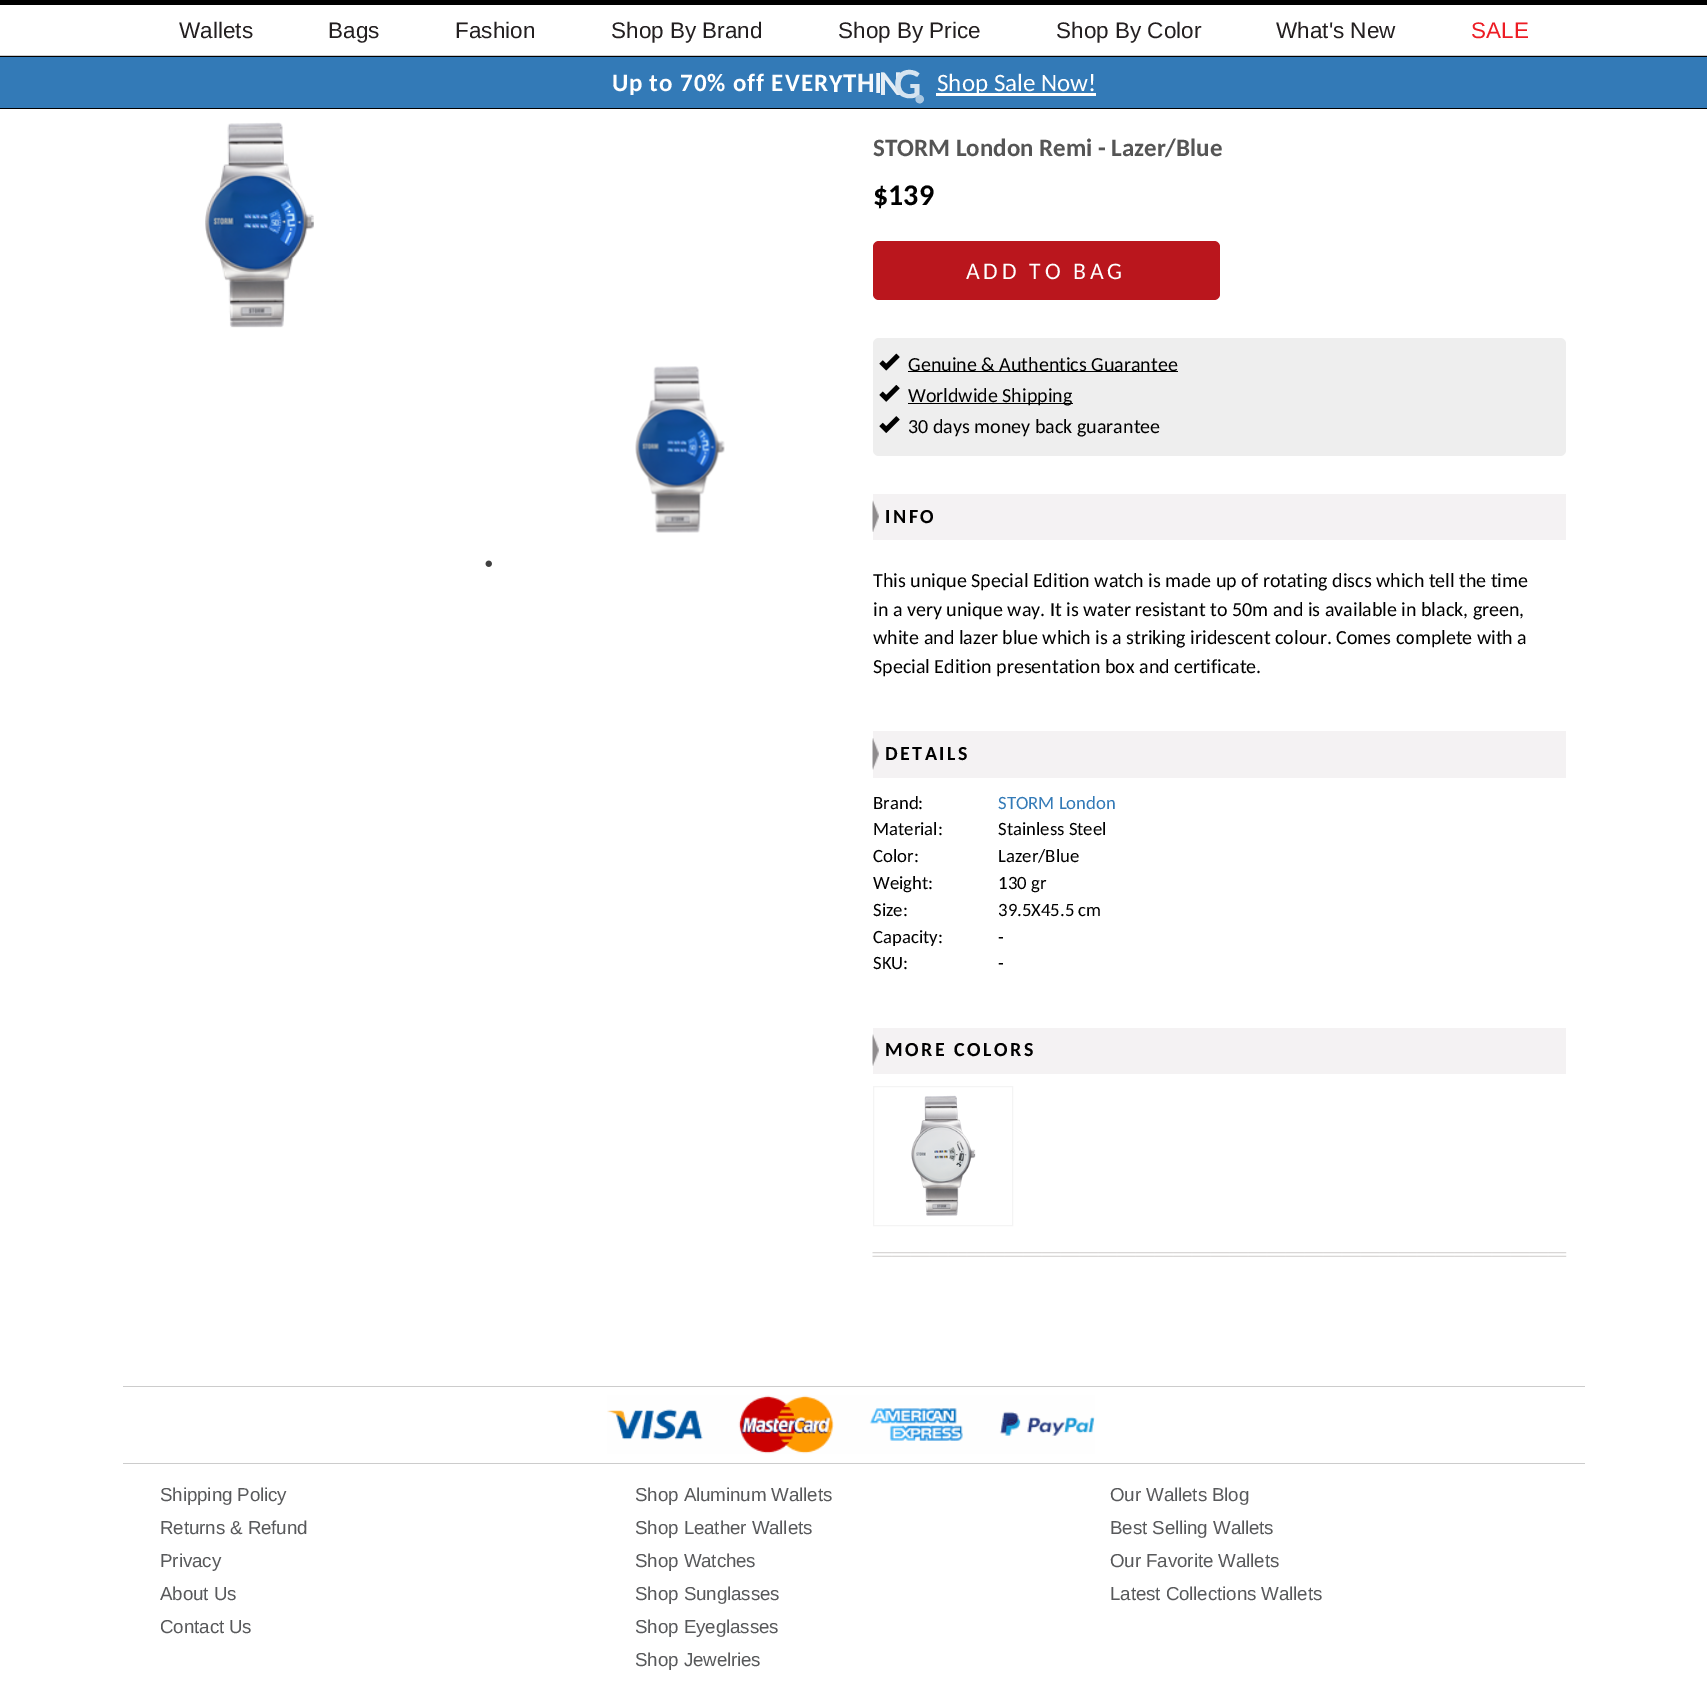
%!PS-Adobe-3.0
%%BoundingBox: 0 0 1707 1686
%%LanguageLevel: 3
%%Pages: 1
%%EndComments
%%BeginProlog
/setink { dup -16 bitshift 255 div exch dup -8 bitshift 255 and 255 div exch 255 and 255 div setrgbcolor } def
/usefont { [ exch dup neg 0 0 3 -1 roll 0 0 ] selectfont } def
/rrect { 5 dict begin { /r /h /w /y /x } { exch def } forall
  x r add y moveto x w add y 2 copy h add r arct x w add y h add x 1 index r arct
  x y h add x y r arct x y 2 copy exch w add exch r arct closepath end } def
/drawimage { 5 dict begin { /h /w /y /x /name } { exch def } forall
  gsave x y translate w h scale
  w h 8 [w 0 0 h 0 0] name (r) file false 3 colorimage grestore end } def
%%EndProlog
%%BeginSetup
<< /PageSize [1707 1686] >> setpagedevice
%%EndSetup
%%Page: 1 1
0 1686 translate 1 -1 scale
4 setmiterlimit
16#FFFFFF setink
0 0 1707 1686 rectfill
16#000000 setink
0 0 1707 5 rectfill
16#CCCCCC setink
0 55 1707 1 rectfill
/LiberationSans-Regular 22.5 usefont
16#231F20 setink
[
    [(Wallets) 179 38]
    [(Bags) 328 38]
    [(Fashion) 455 38]
    [(Shop By Brand) 611 38]
    [(Shop By Price) 838 38]
    [(Shop By Color) 1056 38]
    [(What's New) 1276 38]
] { aload pop moveto show } forall
16#ED1C24 setink
1471 38 moveto (SALE) show
[
    [0 57 1707 51 16#337AB7]
    [0 56 1707 1 16#000000]
    [0 108 1707 1 16#000000]
] { aload pop setink rectfill } forall
/Carlito-Bold 25 usefont
16#FFFFFF setink
612 91 moveto 1 0 (Up) ashow
649 91 moveto 1 0 (to) ashow
680 91 moveto 1 0 (70%) ashow
733 91 moveto 1 0 (off) ashow
771 91 moveto 1 0 (E) ashow
785 91 moveto 1 0 (V) ashow
801 91 moveto 1 0 (E) ashow
814 91 moveto 1 0 (R) ashow
/Carlito-Bold 26 usefont
829 92 moveto 1 0 (Y) ashow
/Carlito-Bold 27 usefont
843 92 moveto 1 0 (T) ashow
/Carlito-Bold 28 usefont
16#F6F9FC setink
857 92 moveto 1 0 (H) ashow
/Carlito-Bold 31 usefont
16#F0F5FA setink
874 93 moveto 2 0 (I) ashow
/Carlito-Bold 35 usefont
16#E4EDF5 setink
879 95 moveto 2 0 (N) ashow
/Carlito-Bold 43 usefont
16#D6E4F0 setink
894 98 moveto 2 0 (G) ashow
/Carlito-Bold 58 usefont
16#ABC8E1 setink
912 103 moveto 3 0 (.) ashow
16#FFFFFF setink
936 93 160 3 rectfill
/Carlito-Regular 25 usefont
937 91 moveto (Shop Sale Now!) show
(img1.raw) 205 122 109 206 drawimage
(img2.raw) 635 366 90 167 drawimage
(img3.raw) 485 560 7 7 drawimage
/Carlito-Bold 25 usefont
16#555555 setink
873 156 moveto (STORM London Remi - Lazer/Blue) show
/Carlito-Bold 30 usefont
16#000000 setink
873 205 moveto ($139) show
16#BA161D setink
873 241 347 59 6 rrect fill
/Carlito-Regular 23.75 usefont
16#FFFFFF setink
966 279 moveto 3.75 0 (ADD TO BAG) ashow
16#EEEEEE setink
873 338 693 118 6 rrect fill
(img4.raw) 879 353 21 18 drawimage
16#000000 setink
908 371 270 1 rectfill
/Carlito-Regular 20 usefont
908 371 moveto (Genuine & Authentics Guarantee) show
(img5.raw) 879 385 21 17 drawimage
908 403 165 1 rectfill
908 402 moveto (Worldwide Shipping) show
(img6.raw) 879 416 21 17 drawimage
908 433 moveto (30 days money back guarantee) show
16#F4F2F3 setink
873 494 693 46 rectfill
(img7.raw) 872 500 7 32 drawimage
/Carlito-Bold 20 usefont
16#000000 setink
885 523 moveto 2.5 0 (INFO) ashow
/Carlito-Regular 20 usefont
[
    [(This unique Special Edition watch is made up of rotating discs which tell the time) 873 587]
    [(in a very unique way. It is water resistant to 50m and is available in black, green,) 873 616]
    [(white and lazer blue which is a striking iridescent colour. Comes complete with a) 873 644]
    [(Special Edition presentation box and certificate.) 873 673]
] { aload pop moveto show } forall
16#F4F2F3 setink
873 731 693 47 rectfill
(img8.raw) 872 738 7 32 drawimage
/Carlito-Bold 20 usefont
16#000000 setink
885 760 moveto 2.5 0 (DETAILS) ashow
/Carlito-Regular 18.75 usefont
873 809 moveto (Brand:) show
16#337AB7 setink
998 809 moveto (STORM London) show
16#000000 setink
[
    [(Material:) 873 835]
    [(Stainless Steel) 998 835]
    [(Color:) 873 862]
    [(Lazer/Blue) 998 862]
    [(Weight:) 873 889]
    [(130 gr) 998 889]
    [(Size:) 873 916]
    [(39.5X45.5 cm) 998 916]
    [(Capacity:) 873 943]
    [(-) 998 943]
    [(SKU:) 873 969]
    [(-) 998 969]
] { aload pop moveto show } forall
16#F4F2F3 setink
873 1028 693 46 rectfill
(img9.raw) 872 1034 7 32 drawimage
/Carlito-Bold 20 usefont
16#000000 setink
885 1056 moveto 2.5 0 (MORE COLORS) ashow
16#F4F4F4 setink
873.5 1086.5 139 139 rectstroke
(img10.raw) 911 1095 65 121 drawimage
(img11.raw) 872 1252 695 5 drawimage
16#CCCCCC setink
123 1386 1462 1 rectfill
123 1463 1462 1 rectfill
(img12.raw) 607 1395 488 59 drawimage
/LiberationSans-Regular 18.75 usefont
16#58595B setink
160 1501 moveto -0.1 0 (Shipping Policy) ashow
160 1534 moveto -0.1 0 (Returns & Refund) ashow
160 1567 moveto -0.1 0 (Privacy) ashow
160 1600 moveto -0.1 0 (About Us) ashow
160 1633 moveto -0.1 0 (Contact Us) ashow
635 1501 moveto -0.1 0 (Shop Aluminum Wallets) ashow
635 1534 moveto -0.1 0 (Shop Leather Wallets) ashow
635 1567 moveto -0.1 0 (Shop Watches) ashow
635 1600 moveto -0.1 0 (Shop Sunglasses) ashow
635 1633 moveto -0.1 0 (Shop Eyeglasses) ashow
635 1666 moveto -0.1 0 (Shop Jewelries) ashow
1110 1501 moveto -0.1 0 (Our Wallets Blog) ashow
1110 1534 moveto -0.1 0 (Best Selling Wallets) ashow
1110 1567 moveto -0.1 0 (Our Favorite Wallets) ashow
1110 1600 moveto -0.1 0 (Latest Collections Wallets) ashow
showpage
%%EOF
